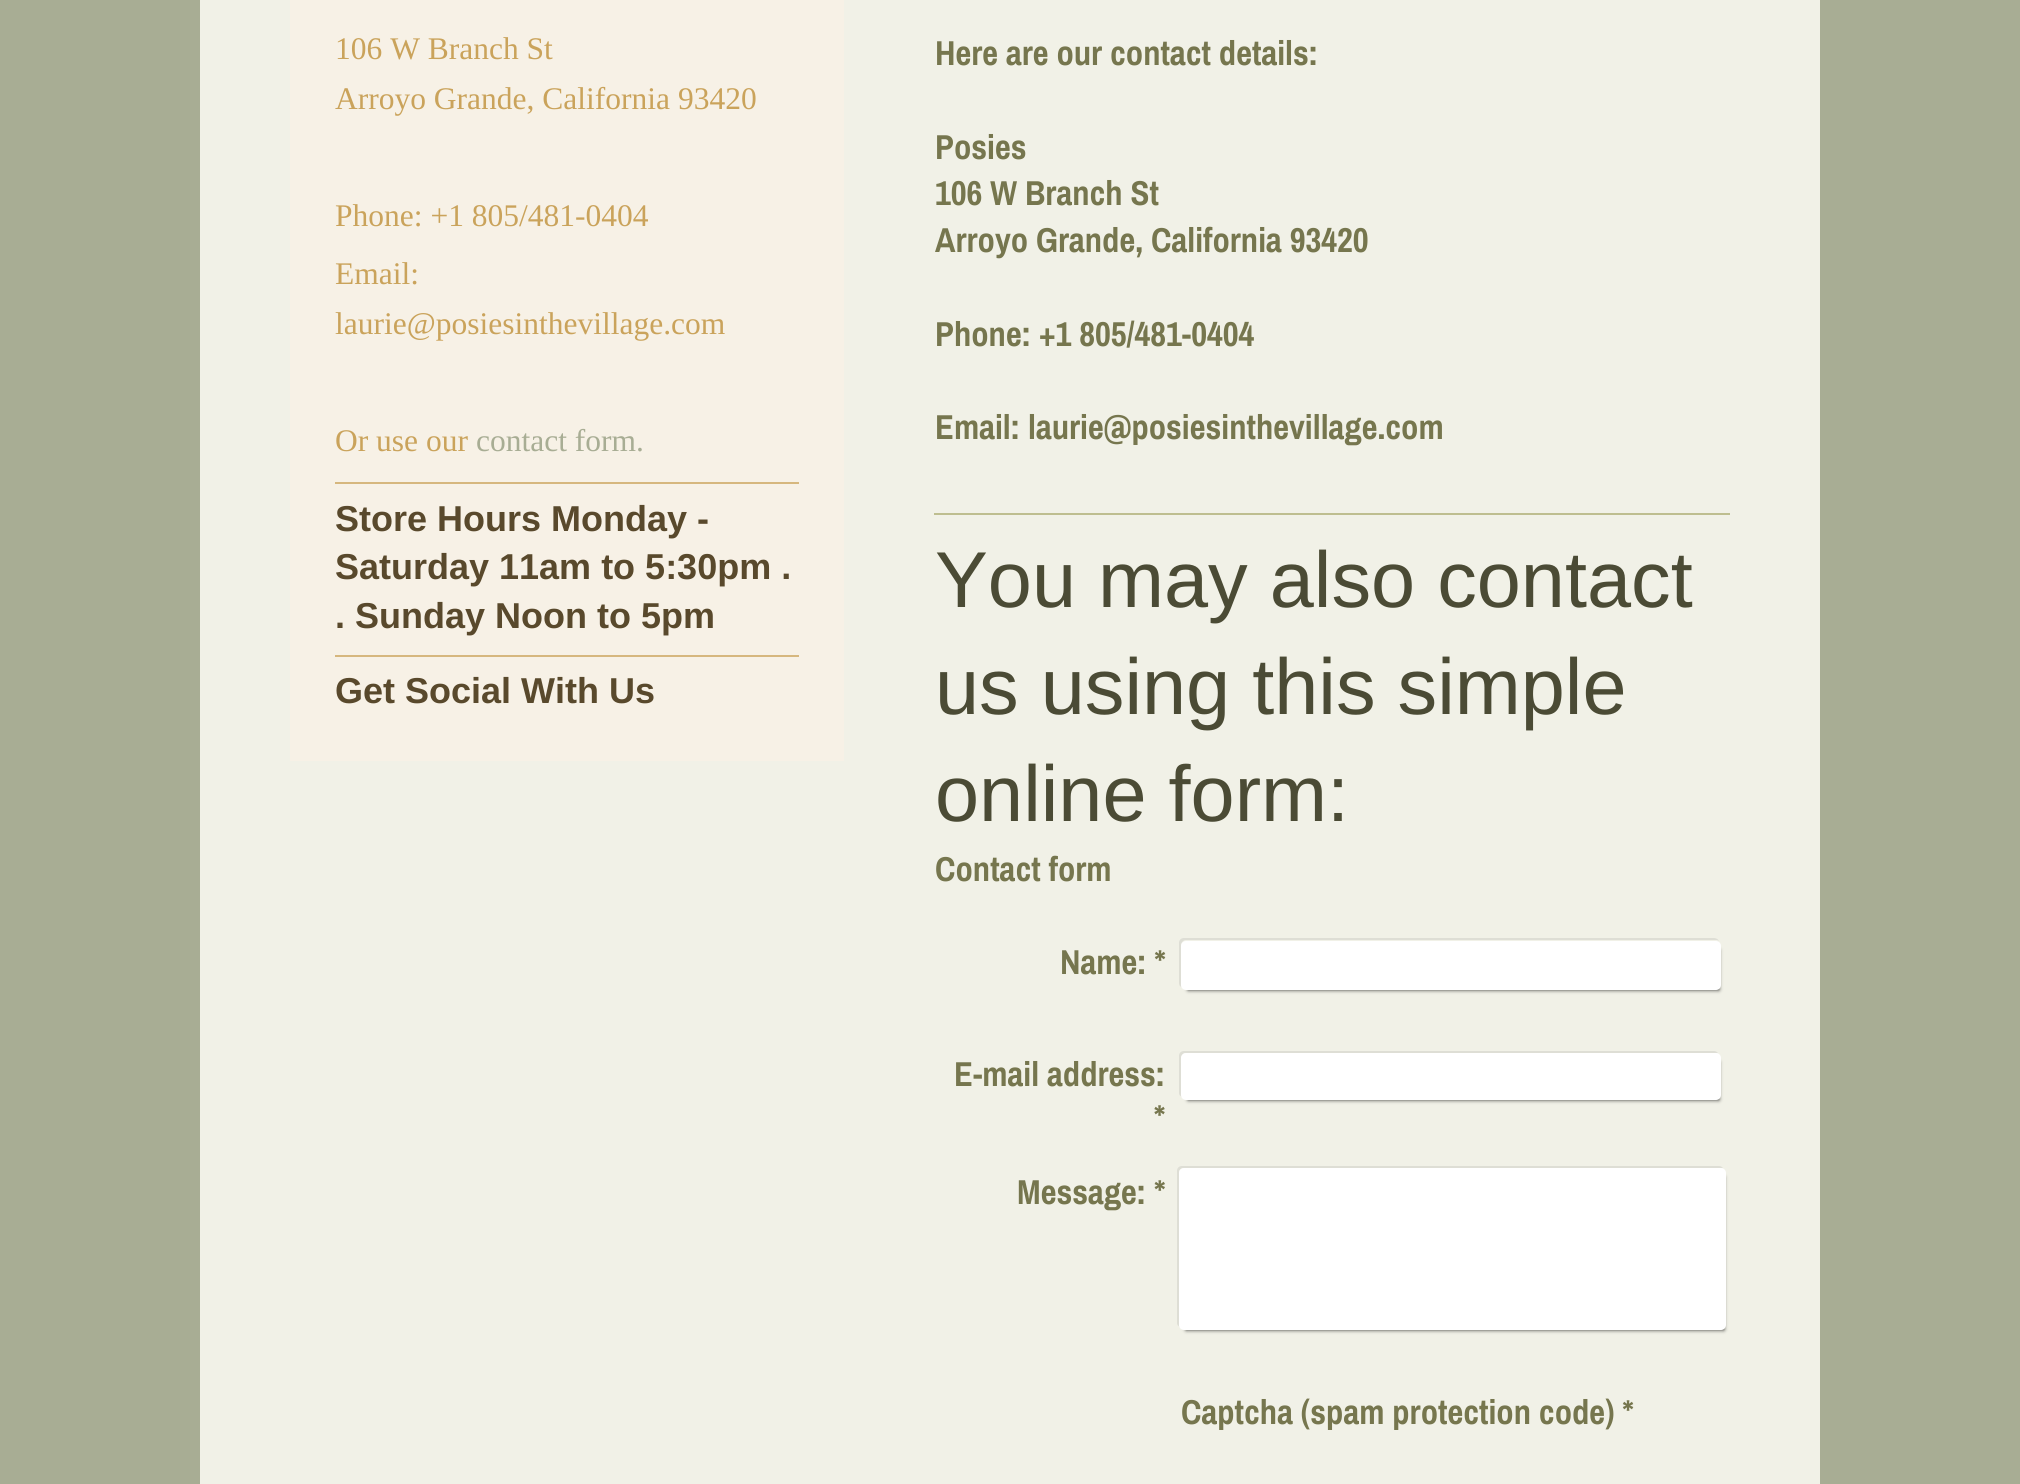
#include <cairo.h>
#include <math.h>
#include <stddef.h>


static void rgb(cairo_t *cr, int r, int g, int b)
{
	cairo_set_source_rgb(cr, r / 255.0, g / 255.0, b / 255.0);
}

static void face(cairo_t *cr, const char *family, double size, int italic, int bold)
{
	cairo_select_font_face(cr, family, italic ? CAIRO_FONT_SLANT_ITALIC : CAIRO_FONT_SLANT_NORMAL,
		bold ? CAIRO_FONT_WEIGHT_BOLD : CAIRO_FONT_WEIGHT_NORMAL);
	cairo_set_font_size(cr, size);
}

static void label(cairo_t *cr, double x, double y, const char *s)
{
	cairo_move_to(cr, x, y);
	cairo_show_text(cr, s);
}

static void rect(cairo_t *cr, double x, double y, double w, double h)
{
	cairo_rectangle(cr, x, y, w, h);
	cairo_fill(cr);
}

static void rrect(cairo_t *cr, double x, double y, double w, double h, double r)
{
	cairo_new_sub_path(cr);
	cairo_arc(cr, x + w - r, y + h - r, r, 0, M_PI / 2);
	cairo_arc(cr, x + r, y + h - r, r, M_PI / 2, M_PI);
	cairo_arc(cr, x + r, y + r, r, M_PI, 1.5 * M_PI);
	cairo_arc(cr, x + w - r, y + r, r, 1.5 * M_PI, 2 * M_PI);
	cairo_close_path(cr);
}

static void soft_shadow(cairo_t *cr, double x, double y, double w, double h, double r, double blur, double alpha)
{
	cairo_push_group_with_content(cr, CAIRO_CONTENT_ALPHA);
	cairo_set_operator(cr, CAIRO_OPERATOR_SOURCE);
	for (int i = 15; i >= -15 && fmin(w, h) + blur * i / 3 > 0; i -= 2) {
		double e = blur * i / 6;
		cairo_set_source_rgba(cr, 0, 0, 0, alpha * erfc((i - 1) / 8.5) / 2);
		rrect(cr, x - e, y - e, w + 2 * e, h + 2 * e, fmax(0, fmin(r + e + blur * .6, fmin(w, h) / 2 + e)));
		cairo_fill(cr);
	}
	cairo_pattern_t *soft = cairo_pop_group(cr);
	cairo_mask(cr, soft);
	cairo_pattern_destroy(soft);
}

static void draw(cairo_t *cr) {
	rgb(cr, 168, 173, 148);
	cairo_paint(cr);
	rgb(cr, 241, 241, 231);
	rect(cr, 200, 0, 1620, 1484);
	rgb(cr, 247, 241, 230);
	rect(cr, 290, 0, 554, 761);
	face(cr, "Liberation Serif", 31.5, 0, 0);
	rgb(cr, 202, 163, 91);
	label(cr, 335, 59, "106 W Branch St");
	label(cr, 335, 109, "Arroyo Grande, California 93420");
	label(cr, 335, 226, "Phone: +1 805/481-0404");
	label(cr, 335, 284, "Email:");
	label(cr, 335, 334, "laurie@posiesinthevillage.com");
	label(cr, 335, 451, "Or use our");
	rgb(cr, 168, 173, 148);
	label(cr, 476, 451, "contact form.");
	rgb(cr, 214, 183, 126);
	rect(cr, 335, 482, 464, 2);
	face(cr, "Liberation Sans", 36, 0, 1);
	rgb(cr, 89, 73, 44);
	label(cr, 335, 531, "Store Hours Monday -");
	label(cr, 335, 579, "Saturday 11am to 5:30pm .");
	label(cr, 335, 628, ". Sunday Noon to 5pm");
	rgb(cr, 214, 183, 126);
	rect(cr, 335, 655, 464, 2);
	rgb(cr, 89, 73, 44);
	label(cr, 335, 703, "Get Social With Us");
	face(cr, "Archivo Narrow", 34.6, 0, 1);
	rgb(cr, 118, 118, 78);
	label(cr, 935, 65, "Here are our contact details:");
	label(cr, 935, 159, "Posies");
	label(cr, 935, 205, "106 W Branch St");
	label(cr, 935, 252, "Arroyo Grande, California 93420");
	label(cr, 935, 346, "Phone: +1 805/481-0404");
	label(cr, 935, 439, "Email: laurie@posiesinthevillage.com");
	rgb(cr, 190, 190, 144);
	rect(cr, 934, 513, 796, 2);
	face(cr, "Liberation Sans", 79.25, 0, 0);
	rgb(cr, 75, 75, 53);
	label(cr, 935, 607, "You may also contact");
	label(cr, 935, 714, "us using this simple");
	label(cr, 935, 821, "online form:");
	face(cr, "Archivo Narrow", 34.6, 0, 1);
	rgb(cr, 118, 118, 78);
	label(cr, 935, 881, "Contact form");
	rgb(cr, 222, 222, 213);
	cairo_new_path(cr);
	cairo_move_to(cr, 1184, 938);
	cairo_curve_to(cr, 1181, 938, 1179, 940, 1179, 943);
	cairo_line_to(cr, 1179, 983);
	cairo_curve_to(cr, 1179, 985, 1180, 987, 1182, 987);
	cairo_line_to(cr, 1181, 986);
	cairo_line_to(cr, 1181, 945);
	cairo_curve_to(cr, 1181, 943, 1183, 940, 1186, 940);
	cairo_line_to(cr, 1717, 940);
	cairo_line_to(cr, 1719, 941);
	cairo_curve_to(cr, 1718, 939, 1716, 938, 1714, 938);
	cairo_close_path(cr);
	cairo_fill(cr);
	rgb(cr, 0, 0, 0);
	soft_shadow(cr, 1188, 950, 531, 40, 0, 2, 0.8);
	rgb(cr, 255, 255, 255);
	rrect(cr, 1181, 941, 540, 49, 5);
	cairo_fill(cr);
	rgb(cr, 118, 118, 78);
	label(cr, 1060, 974, "Name: *");
	rgb(cr, 222, 222, 213);
	cairo_new_path(cr);
	cairo_move_to(cr, 1184, 1051);
	cairo_curve_to(cr, 1181, 1051, 1179, 1053, 1179, 1056);
	cairo_line_to(cr, 1179, 1093);
	cairo_curve_to(cr, 1179, 1095, 1180, 1096, 1182, 1097);
	cairo_line_to(cr, 1181, 1064);
	cairo_curve_to(cr, 1181, 1060, 1180, 1053, 1186, 1053);
	cairo_line_to(cr, 1718, 1053);
	cairo_curve_to(cr, 1717, 1052, 1716, 1051, 1714, 1051);
	cairo_close_path(cr);
	cairo_fill(cr);
	rgb(cr, 0, 0, 0);
	soft_shadow(cr, 1188, 1062, 531, 38, 0, 2, 0.8);
	rgb(cr, 255, 255, 255);
	rrect(cr, 1181, 1053, 540, 47, 5);
	cairo_fill(cr);
	rgb(cr, 118, 118, 78);
	label(cr, 954, 1086, "E-mail address:");
	label(cr, 1154, 1129, "*");
	rgb(cr, 222, 222, 213);
	cairo_new_path(cr);
	cairo_move_to(cr, 1182, 1166);
	cairo_curve_to(cr, 1179, 1166, 1177, 1168, 1177, 1171);
	cairo_line_to(cr, 1177, 1323);
	cairo_curve_to(cr, 1177, 1325, 1178, 1326, 1180, 1327);
	cairo_line_to(cr, 1179, 1325);
	cairo_line_to(cr, 1179, 1172);
	cairo_curve_to(cr, 1179, 1170, 1181, 1168, 1184, 1168);
	cairo_line_to(cr, 1721, 1168);
	cairo_line_to(cr, 1723, 1168);
	cairo_curve_to(cr, 1722, 1167, 1721, 1166, 1719, 1166);
	cairo_close_path(cr);
	cairo_fill(cr);
	rgb(cr, 0, 0, 0);
	soft_shadow(cr, 1186, 1177, 538, 153, 0, 2, 0.8);
	rgb(cr, 255, 255, 255);
	rrect(cr, 1179, 1168, 547, 162, 5);
	cairo_fill(cr);
	rgb(cr, 118, 118, 78);
	label(cr, 1017, 1204, "Message: *");
	label(cr, 1181, 1424, "Captcha (spam protection code) *");
}

int main(void) {
	cairo_surface_t *surface = cairo_image_surface_create(CAIRO_FORMAT_RGB24, 2020, 1484);
	cairo_t *cr = cairo_create(surface);
	cairo_font_options_t *options = cairo_font_options_create();
	cairo_font_options_set_hint_metrics(options, CAIRO_HINT_METRICS_OFF);
	cairo_font_options_set_hint_style(options, CAIRO_HINT_STYLE_NONE);
	cairo_set_font_options(cr, options);
	cairo_set_miter_limit(cr, 4);
	draw(cr);
	cairo_surface_write_to_png(surface, "render.png");
	cairo_font_options_destroy(options);
	cairo_destroy(cr);
	cairo_surface_destroy(surface);
	return 0;
}
